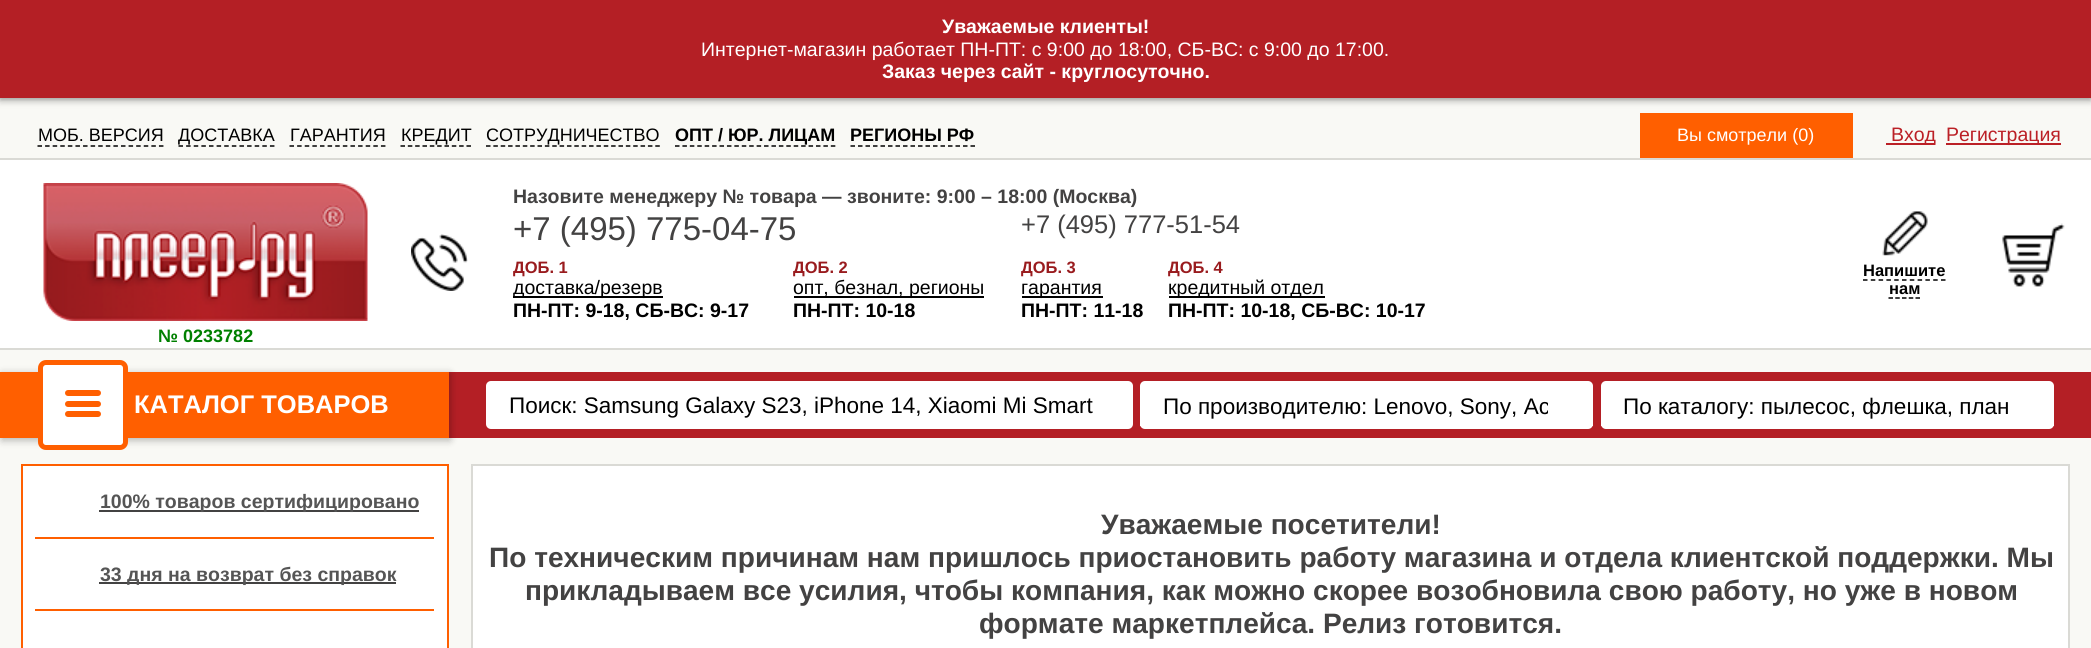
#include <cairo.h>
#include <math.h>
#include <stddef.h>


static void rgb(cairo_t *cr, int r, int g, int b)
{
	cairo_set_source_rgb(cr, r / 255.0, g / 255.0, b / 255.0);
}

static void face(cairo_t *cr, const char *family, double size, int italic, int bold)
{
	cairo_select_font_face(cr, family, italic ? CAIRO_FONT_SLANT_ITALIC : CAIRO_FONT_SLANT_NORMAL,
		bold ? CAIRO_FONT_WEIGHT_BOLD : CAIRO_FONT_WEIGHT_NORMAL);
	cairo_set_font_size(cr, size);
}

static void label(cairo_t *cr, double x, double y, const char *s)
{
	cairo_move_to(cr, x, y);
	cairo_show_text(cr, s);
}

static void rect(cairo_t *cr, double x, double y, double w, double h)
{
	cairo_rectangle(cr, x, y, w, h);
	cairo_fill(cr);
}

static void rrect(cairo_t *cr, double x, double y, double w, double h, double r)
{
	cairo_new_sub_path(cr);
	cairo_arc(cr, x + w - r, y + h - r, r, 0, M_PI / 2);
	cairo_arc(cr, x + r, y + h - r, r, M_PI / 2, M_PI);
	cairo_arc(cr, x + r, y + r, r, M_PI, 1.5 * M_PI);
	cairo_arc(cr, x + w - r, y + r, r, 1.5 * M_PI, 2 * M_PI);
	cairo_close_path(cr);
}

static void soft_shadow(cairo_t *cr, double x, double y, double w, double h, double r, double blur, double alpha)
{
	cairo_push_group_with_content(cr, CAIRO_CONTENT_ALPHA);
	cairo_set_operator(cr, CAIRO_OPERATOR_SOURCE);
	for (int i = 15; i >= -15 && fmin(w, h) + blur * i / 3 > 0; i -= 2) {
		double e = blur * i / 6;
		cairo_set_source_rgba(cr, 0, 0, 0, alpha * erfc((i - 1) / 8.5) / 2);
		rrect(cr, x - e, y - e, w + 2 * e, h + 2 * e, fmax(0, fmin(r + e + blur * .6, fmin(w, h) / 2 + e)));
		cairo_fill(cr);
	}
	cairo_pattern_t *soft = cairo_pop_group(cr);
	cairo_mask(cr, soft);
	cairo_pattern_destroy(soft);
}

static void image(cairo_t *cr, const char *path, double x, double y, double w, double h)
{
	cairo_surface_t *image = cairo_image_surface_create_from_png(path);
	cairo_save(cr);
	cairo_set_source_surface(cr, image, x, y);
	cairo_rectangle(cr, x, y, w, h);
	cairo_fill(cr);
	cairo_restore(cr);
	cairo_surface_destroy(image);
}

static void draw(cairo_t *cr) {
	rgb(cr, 249, 249, 245);
	cairo_paint(cr);
	rgb(cr, 0, 0, 0);
	soft_shadow(cr, 0, 2, 2091, 97, 0, 4, 0.5);
	rgb(cr, 180, 31, 37);
	rect(cr, 0, 0, 2091, 98);
	face(cr, "Liberation Sans", 19.5, 0, 1);
	rgb(cr, 255, 255, 255);
	label(cr, 942, 33, "Уважаемые клиенты!");
	face(cr, "Liberation Sans", 19.5, 0, 0);
	label(cr, 701, 56, "Интернет-магазин работает ПН-ПТ: с 9:00 до 18:00, СБ-ВС: с 9:00 до 17:00.");
	face(cr, "Liberation Sans", 19.5, 0, 1);
	label(cr, 882, 78, "Заказ через сайт - круглосуточно.");
	face(cr, "Liberation Sans", 18, 0, 0);
	rgb(cr, 0, 0, 0);
	label(cr, 38, 141, "МОБ. ВЕРСИЯ");
	cairo_new_path(cr);
	cairo_move_to(cr, 37.5, 146);
	cairo_line_to(cr, 163.5, 146);
	cairo_set_line_width(cr, 1.5);
	cairo_set_dash(cr, (double[]){4.5, 3.09}, 2, 0);
	cairo_stroke(cr);
	label(cr, 178, 141, "ДОСТАВКА");
	cairo_new_path(cr);
	cairo_move_to(cr, 178.5, 146);
	cairo_line_to(cr, 274.5, 146);
	cairo_set_dash(cr, (double[]){4.5, 3.12}, 2, 0);
	cairo_stroke(cr);
	label(cr, 290, 141, "ГАРАНТИЯ");
	cairo_new_path(cr);
	cairo_move_to(cr, 289.5, 146);
	cairo_line_to(cr, 385.5, 146);
	cairo_stroke(cr);
	label(cr, 401, 141, "КРЕДИТ");
	cairo_new_path(cr);
	cairo_move_to(cr, 400.5, 146);
	cairo_line_to(cr, 471, 146);
	cairo_set_dash(cr, (double[]){4.5, 2.83}, 2, 0);
	cairo_stroke(cr);
	label(cr, 486, 141, "СОТРУДНИЧЕСТВО");
	cairo_new_path(cr);
	cairo_move_to(cr, 486, 146);
	cairo_line_to(cr, 660, 146);
	cairo_set_dash(cr, (double[]){4.5, 2.86}, 2, 0);
	cairo_stroke(cr);
	face(cr, "Liberation Sans", 18, 0, 1);
	label(cr, 675, 141, "ОПТ / ЮР. ЛИЦАМ");
	cairo_new_path(cr);
	cairo_move_to(cr, 675, 146);
	cairo_line_to(cr, 835.5, 146);
	cairo_set_dash(cr, (double[]){4.5, 2.92}, 2, 0);
	cairo_stroke(cr);
	label(cr, 850, 141, "РЕГИОНЫ РФ");
	cairo_new_path(cr);
	cairo_move_to(cr, 850.5, 146);
	cairo_line_to(cr, 975, 146);
	cairo_set_dash(cr, (double[]){4.5, 3}, 2, 0);
	cairo_stroke(cr);
	rgb(cr, 255, 95, 0);
	rect(cr, 1640, 113, 213, 45);
	face(cr, "Liberation Sans", 18, 0, 0);
	rgb(cr, 255, 255, 255);
	label(cr, 1677, 141, "Вы смотрели (0)");
	rgb(cr, 187, 32, 38);
	rect(cr, 1886, 143, 49, 2);
	face(cr, "Liberation Sans", 19.5, 0, 0);
	label(cr, 1891, 141, "Вход");
	rect(cr, 1946, 143, 115, 2);
	label(cr, 1946, 141, "Регистрация");
	rgb(cr, 255, 255, 255);
	rect(cr, 0, 160, 2091, 188);
	rgb(cr, 218, 218, 213);
	rect(cr, 0, 158, 2091, 2);
	rect(cr, 0, 348, 2091, 2);
	image(cr, "image0.png", 411, 234, 57, 57);
	face(cr, "Liberation Sans", 19.5, 0, 1);
	rgb(cr, 67, 66, 66);
	label(cr, 513, 203, "Назовите менеджеру № товара — звоните: 9:00 – 18:00 (Москва)");
	face(cr, "Liberation Sans", 33, 0, 0);
	label(cr, 513, 240, "+7 (495) 775-04-75");
	face(cr, "Liberation Sans", 25.5, 0, 0);
	label(cr, 1021, 233, "+7 (495) 777-51-54");
	face(cr, "Liberation Sans", 16.5, 0, 1);
	rgb(cr, 153, 27, 30);
	label(cr, 513, 273, "ДОБ. 1");
	rgb(cr, 0, 0, 0);
	rect(cr, 513, 296, 150, 2);
	face(cr, "Liberation Sans", 19.5, 0, 0);
	label(cr, 513, 294, "доставка/резерв");
	face(cr, "Liberation Sans", 19.5, 0, 1);
	label(cr, 513, 317, "ПН-ПТ: 9-18, СБ-ВС: 9-17");
	face(cr, "Liberation Sans", 16.5, 0, 1);
	rgb(cr, 153, 27, 30);
	label(cr, 793, 273, "ДОБ. 2");
	rgb(cr, 0, 0, 0);
	rect(cr, 794, 296, 190, 2);
	face(cr, "Liberation Sans", 19.5, 0, 0);
	label(cr, 793, 294, "опт, безнал, регионы");
	face(cr, "Liberation Sans", 19.5, 0, 1);
	label(cr, 793, 317, "ПН-ПТ: 10-18");
	face(cr, "Liberation Sans", 16.5, 0, 1);
	rgb(cr, 153, 27, 30);
	label(cr, 1021, 273, "ДОБ. 3");
	rgb(cr, 0, 0, 0);
	rect(cr, 1022, 296, 81, 2);
	face(cr, "Liberation Sans", 19.5, 0, 0);
	label(cr, 1021, 294, "гарантия");
	face(cr, "Liberation Sans", 19.5, 0, 1);
	label(cr, 1021, 317, "ПН-ПТ: 11-18");
	face(cr, "Liberation Sans", 16.5, 0, 1);
	rgb(cr, 153, 27, 30);
	label(cr, 1168, 273, "ДОБ. 4");
	rgb(cr, 0, 0, 0);
	rect(cr, 1169, 296, 156, 2);
	face(cr, "Liberation Sans", 19.5, 0, 0);
	label(cr, 1168, 294, "кредитный отдел");
	face(cr, "Liberation Sans", 19.5, 0, 1);
	label(cr, 1168, 317, "ПН-ПТ: 10-18, СБ-ВС: 10-17");
	image(cr, "image1.png", 1882, 211, 46, 45);
	face(cr, "Liberation Sans", 16.5, 0, 1);
	label(cr, 1863, 276, "Напишите");
	cairo_new_path(cr);
	cairo_move_to(cr, 1863, 280);
	cairo_line_to(cr, 1945.5, 280);
	cairo_set_dash(cr, (double[]){4.5, 3.3}, 2, 0);
	cairo_stroke(cr);
	label(cr, 1889, 294, "нам");
	cairo_new_path(cr);
	cairo_move_to(cr, 1888.5, 298);
	cairo_line_to(cr, 1920, 298);
	cairo_set_dash(cr, (double[]){4.5, 2.25}, 2, 0);
	cairo_stroke(cr);
	image(cr, "image2.png", 2002, 223, 63, 64);
	image(cr, "image3.png", 43, 183, 325, 138);
	face(cr, "Liberation Sans", 18, 0, 1);
	rgb(cr, 0, 128, 0);
	label(cr, 158, 342, "№ 0233782");
	rgb(cr, 180, 31, 37);
	rect(cr, 449, 372, 1642, 66);
	rgb(cr, 0, 0, 0);
	soft_shadow(cr, 2, 374, 448, 66, 0, 4, 0.3);
	rgb(cr, 255, 95, 0);
	rect(cr, 0, 372, 449, 66);
	rgb(cr, 255, 255, 255);
	rrect(cr, 40.5, 362.5, 85, 85, 5.5);
	cairo_fill_preserve(cr);
	rgb(cr, 255, 95, 0);
	cairo_set_line_width(cr, 5);
	cairo_set_dash(cr, NULL, 0, 0);
	cairo_stroke(cr);
	rrect(cr, 65, 390, 36, 6, 3);
	cairo_fill(cr);
	rrect(cr, 65, 401, 36, 6, 3);
	cairo_fill(cr);
	rrect(cr, 65, 411, 36, 6, 3);
	cairo_fill(cr);
	face(cr, "Liberation Sans", 25.5, 0, 1);
	rgb(cr, 255, 255, 255);
	label(cr, 134, 413, "КАТАЛОГ ТОВАРОВ");
	rrect(cr, 486, 381, 647, 48, 5);
	cairo_fill(cr);
	face(cr, "Liberation Sans", 22.5, 0, 0);
	rgb(cr, 0, 0, 0);
	label(cr, 509, 413, "Поиск: Samsung Galaxy S23, iPhone 14, Xiaomi Mi Smart");
	rgb(cr, 255, 255, 255);
	rrect(cr, 1140, 381, 453, 48, 5);
	cairo_fill(cr);
	rect(cr, 1140, 424, 453, 2);
	cairo_save(cr);
	cairo_rectangle(cr, 1163, 393, 385, 26);
	cairo_clip(cr);
	rgb(cr, 0, 0, 0);
	label(cr, 1163, 414, "По производителю: Lenovo, Sony, Ac");
	cairo_restore(cr);
	rrect(cr, 1601, 381, 453, 48, 5);
	cairo_fill(cr);
	rect(cr, 1601, 424, 453, 2);
	rgb(cr, 0, 0, 0);
	label(cr, 1623, 414, "По каталогу: пылесос, флешка, план");
	rgb(cr, 255, 255, 255);
	cairo_rectangle(cr, 22, 465, 426, 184);
	cairo_fill_preserve(cr);
	rgb(cr, 255, 95, 0);
	cairo_set_line_width(cr, 2);
	cairo_stroke(cr);
	rgb(cr, 67, 66, 66);
	rect(cr, 99, 510, 320, 2);
	face(cr, "Liberation Sans", 19.5, 0, 1);
	rgb(cr, 85, 85, 85);
	label(cr, 100, 508, "100% товаров сертифицировано");
	rgb(cr, 255, 95, 0);
	rect(cr, 35, 537, 399, 2);
	rgb(cr, 67, 66, 66);
	rect(cr, 99, 582, 297, 2);
	rgb(cr, 85, 85, 85);
	label(cr, 100, 581, "33 дня на возврат без справок");
	rgb(cr, 255, 95, 0);
	rect(cr, 35, 609, 399, 2);
	rgb(cr, 255, 255, 255);
	cairo_rectangle(cr, 472, 465, 1597, 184);
	cairo_fill_preserve(cr);
	rgb(cr, 218, 218, 213);
	cairo_stroke(cr);
	face(cr, "Liberation Sans", 28.08, 0, 1);
	rgb(cr, 67, 66, 66);
	label(cr, 1101, 534, "Уважаемые посетители!");
	label(cr, 489, 567, "По техническим причинам нам пришлось приостановить работу магазина и отдела клиентской поддержки. Мы");
	label(cr, 525, 600, "прикладываем все усилия, чтобы компания, как можно скорее возобновила свою работу, но уже в новом");
	label(cr, 979, 633, "формате маркетплейса. Релиз готовится.");
}

int main(void) {
	cairo_surface_t *surface = cairo_image_surface_create(CAIRO_FORMAT_RGB24, 2091, 648);
	cairo_t *cr = cairo_create(surface);
	cairo_font_options_t *options = cairo_font_options_create();
	cairo_font_options_set_hint_metrics(options, CAIRO_HINT_METRICS_OFF);
	cairo_font_options_set_hint_style(options, CAIRO_HINT_STYLE_NONE);
	cairo_set_font_options(cr, options);
	cairo_set_miter_limit(cr, 4);
	draw(cr);
	cairo_surface_write_to_png(surface, "render.png");
	cairo_font_options_destroy(options);
	cairo_destroy(cr);
	cairo_surface_destroy(surface);
	return 0;
}
